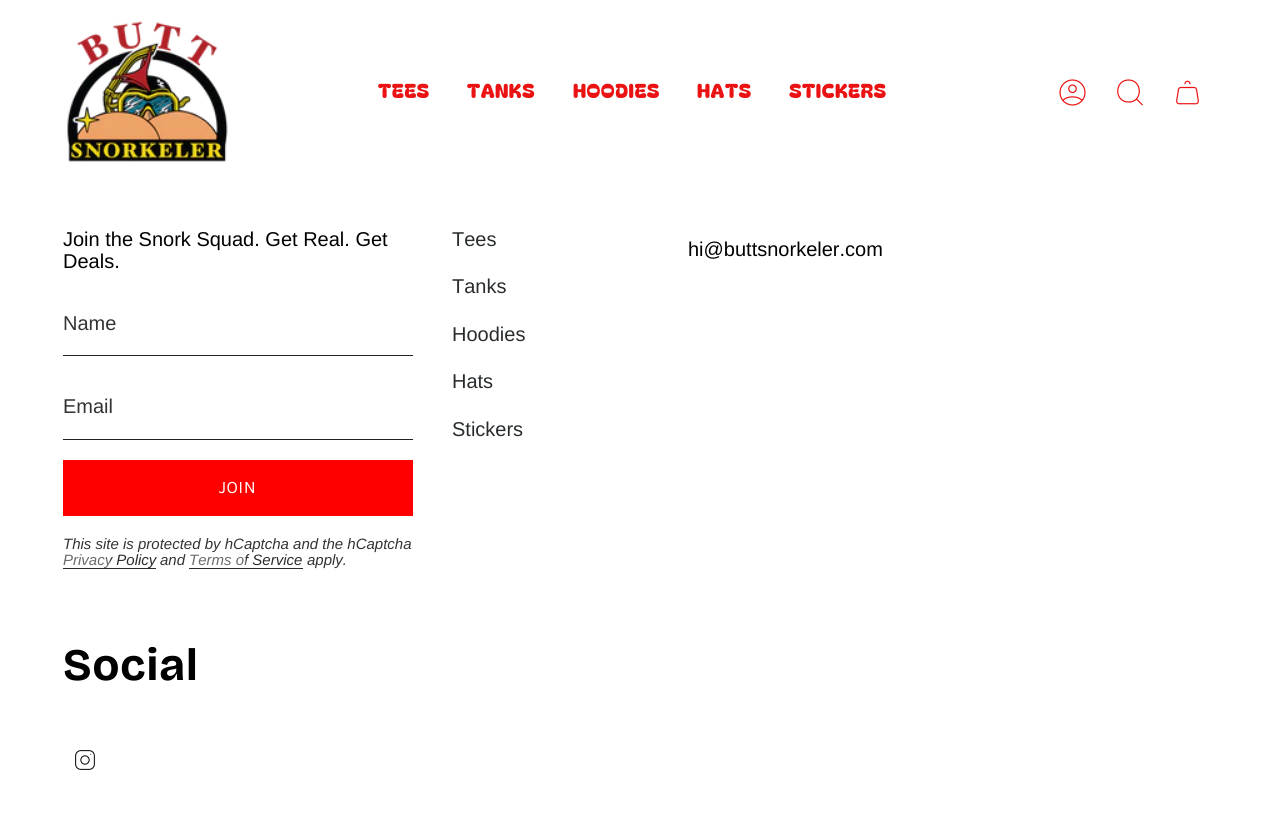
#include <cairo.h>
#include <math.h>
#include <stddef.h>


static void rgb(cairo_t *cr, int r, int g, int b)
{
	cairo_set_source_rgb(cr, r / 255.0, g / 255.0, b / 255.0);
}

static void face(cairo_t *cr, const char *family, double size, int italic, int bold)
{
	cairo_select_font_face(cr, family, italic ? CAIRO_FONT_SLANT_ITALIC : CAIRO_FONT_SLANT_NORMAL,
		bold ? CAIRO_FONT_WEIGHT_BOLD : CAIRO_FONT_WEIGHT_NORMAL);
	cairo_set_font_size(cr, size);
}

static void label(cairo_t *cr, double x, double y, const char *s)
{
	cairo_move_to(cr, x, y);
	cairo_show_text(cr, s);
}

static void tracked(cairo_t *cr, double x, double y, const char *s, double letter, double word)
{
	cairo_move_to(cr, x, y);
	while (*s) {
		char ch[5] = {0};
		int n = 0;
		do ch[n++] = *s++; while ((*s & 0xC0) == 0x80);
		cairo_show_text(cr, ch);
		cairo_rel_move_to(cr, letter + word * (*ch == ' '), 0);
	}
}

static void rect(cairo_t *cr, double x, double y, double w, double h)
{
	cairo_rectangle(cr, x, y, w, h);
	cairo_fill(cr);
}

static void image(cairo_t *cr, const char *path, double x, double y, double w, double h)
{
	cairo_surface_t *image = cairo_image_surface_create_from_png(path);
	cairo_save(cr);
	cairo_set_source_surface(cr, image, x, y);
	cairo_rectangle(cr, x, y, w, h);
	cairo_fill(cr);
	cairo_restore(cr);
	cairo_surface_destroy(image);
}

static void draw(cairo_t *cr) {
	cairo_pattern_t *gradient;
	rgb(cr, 255, 255, 255);
	cairo_paint(cr);
	image(cr, "image0.png", 67, 21, 161, 141);
	face(cr, "Bagel Fat One", 19.5, 0, 0);
	rgb(cr, 234, 18, 18);
	tracked(cr, 378, 98, "TEES", 0.5, 0);
	tracked(cr, 467, 98, "TANKS", 0.5, 0);
	tracked(cr, 573, 98, "HOODIES", 0.5, 0);
	tracked(cr, 697, 98, "HATS", 0.5, 0);
	tracked(cr, 789, 98, "STICKERS", 0.5, 0);
	image(cr, "image1.png", 1059, 79, 27, 27);
	cairo_new_path(cr);
	cairo_move_to(cr, 1128.5, 80);
	cairo_curve_to(cr, 1143, 80, 1143, 103, 1128, 102);
	cairo_curve_to(cr, 1114, 101.5, 1114.5, 80, 1128.5, 80);
	cairo_close_path(cr);
	cairo_move_to(cr, 1136.5, 99);
	cairo_line_to(cr, 1142.5, 105);
	cairo_set_line_width(cr, 1.2);
	cairo_stroke(cr);
	image(cr, "image2.png", 1176, 80, 23, 25);
	face(cr, "Liberation Sans", 20, 0, 0);
	rgb(cr, 0, 0, 0);
	label(cr, 63, 246, "Join the Snork Squad. Get Real. Get");
	label(cr, 63, 268, "Deals.");
	rgb(cr, 33, 33, 33);
	rect(cr, 63, 355, 350, 1);
	rgb(cr, 51, 51, 51);
	label(cr, 63, 330, "Name");
	rgb(cr, 33, 33, 33);
	rect(cr, 63, 439, 350, 1);
	rgb(cr, 51, 51, 51);
	label(cr, 63, 413, "Email");
	rgb(cr, 255, 0, 0);
	rect(cr, 63, 460, 350, 56);
	face(cr, "Karla", 17.5, 0, 0);
	rgb(cr, 255, 255, 255);
	tracked(cr, 219, 493, "JOIN", 0.5, 0);
	face(cr, "Liberation Sans", 15, 1, 0);
	rgb(cr, 51, 51, 51);
	label(cr, 63, 549, "This site is protected by hCaptcha and the hCaptcha");
	gradient = cairo_pattern_create_linear(63, 560, 156, 560);
	cairo_pattern_add_color_stop_rgba(gradient, 0, 0.412, 0.42, 0.427, 1);
	cairo_pattern_add_color_stop_rgba(gradient, 0.5, 0.412, 0.42, 0.427, 1);
	cairo_pattern_add_color_stop_rgba(gradient, 0.5, 0.157, 0.173, 0.18, 1);
	cairo_pattern_add_color_stop_rgba(gradient, 1, 0.157, 0.173, 0.18, 1);
	cairo_set_source(cr, gradient);
	cairo_pattern_destroy(gradient);
	label(cr, 63, 565, "Privacy Policy");
	rgb(cr, 40, 44, 46);
	rect(cr, 63, 568, 93, 1);
	rgb(cr, 51, 51, 51);
	label(cr, 160, 565, "and");
	gradient = cairo_pattern_create_linear(189, 560, 303, 560);
	cairo_pattern_add_color_stop_rgba(gradient, 0, 0.412, 0.42, 0.427, 1);
	cairo_pattern_add_color_stop_rgba(gradient, 0.5, 0.412, 0.42, 0.427, 1);
	cairo_pattern_add_color_stop_rgba(gradient, 0.5, 0.157, 0.173, 0.18, 1);
	cairo_pattern_add_color_stop_rgba(gradient, 1, 0.157, 0.173, 0.18, 1);
	cairo_set_source(cr, gradient);
	cairo_pattern_destroy(gradient);
	label(cr, 189, 565, "Terms of Service");
	rgb(cr, 40, 44, 46);
	rect(cr, 189, 568, 114, 1);
	rgb(cr, 51, 51, 51);
	label(cr, 307, 565, "apply.");
	face(cr, "Liberation Sans", 20, 0, 0);
	rgb(cr, 40, 44, 46);
	label(cr, 452, 246, "Tees");
	label(cr, 452, 293, "Tanks");
	label(cr, 452, 341, "Hoodies");
	label(cr, 452, 388, "Hats");
	label(cr, 452, 436, "Stickers");
	rgb(cr, 0, 0, 0);
	label(cr, 688, 256, "hi@buttsnorkeler.com");
	face(cr, "Bricolage Grotesque", 45, 0, 1);
	tracked(cr, 63, 680, "Social", 1, 0);
	image(cr, "image3.png", 75, 750, 20, 20);
}

int main(void) {
	cairo_surface_t *surface = cairo_image_surface_create(CAIRO_FORMAT_RGB24, 1264, 819);
	cairo_t *cr = cairo_create(surface);
	cairo_font_options_t *options = cairo_font_options_create();
	cairo_font_options_set_hint_metrics(options, CAIRO_HINT_METRICS_OFF);
	cairo_font_options_set_hint_style(options, CAIRO_HINT_STYLE_NONE);
	cairo_set_font_options(cr, options);
	cairo_set_miter_limit(cr, 4);
	draw(cr);
	cairo_surface_write_to_png(surface, "render.png");
	cairo_font_options_destroy(options);
	cairo_destroy(cr);
	cairo_surface_destroy(surface);
	return 0;
}
